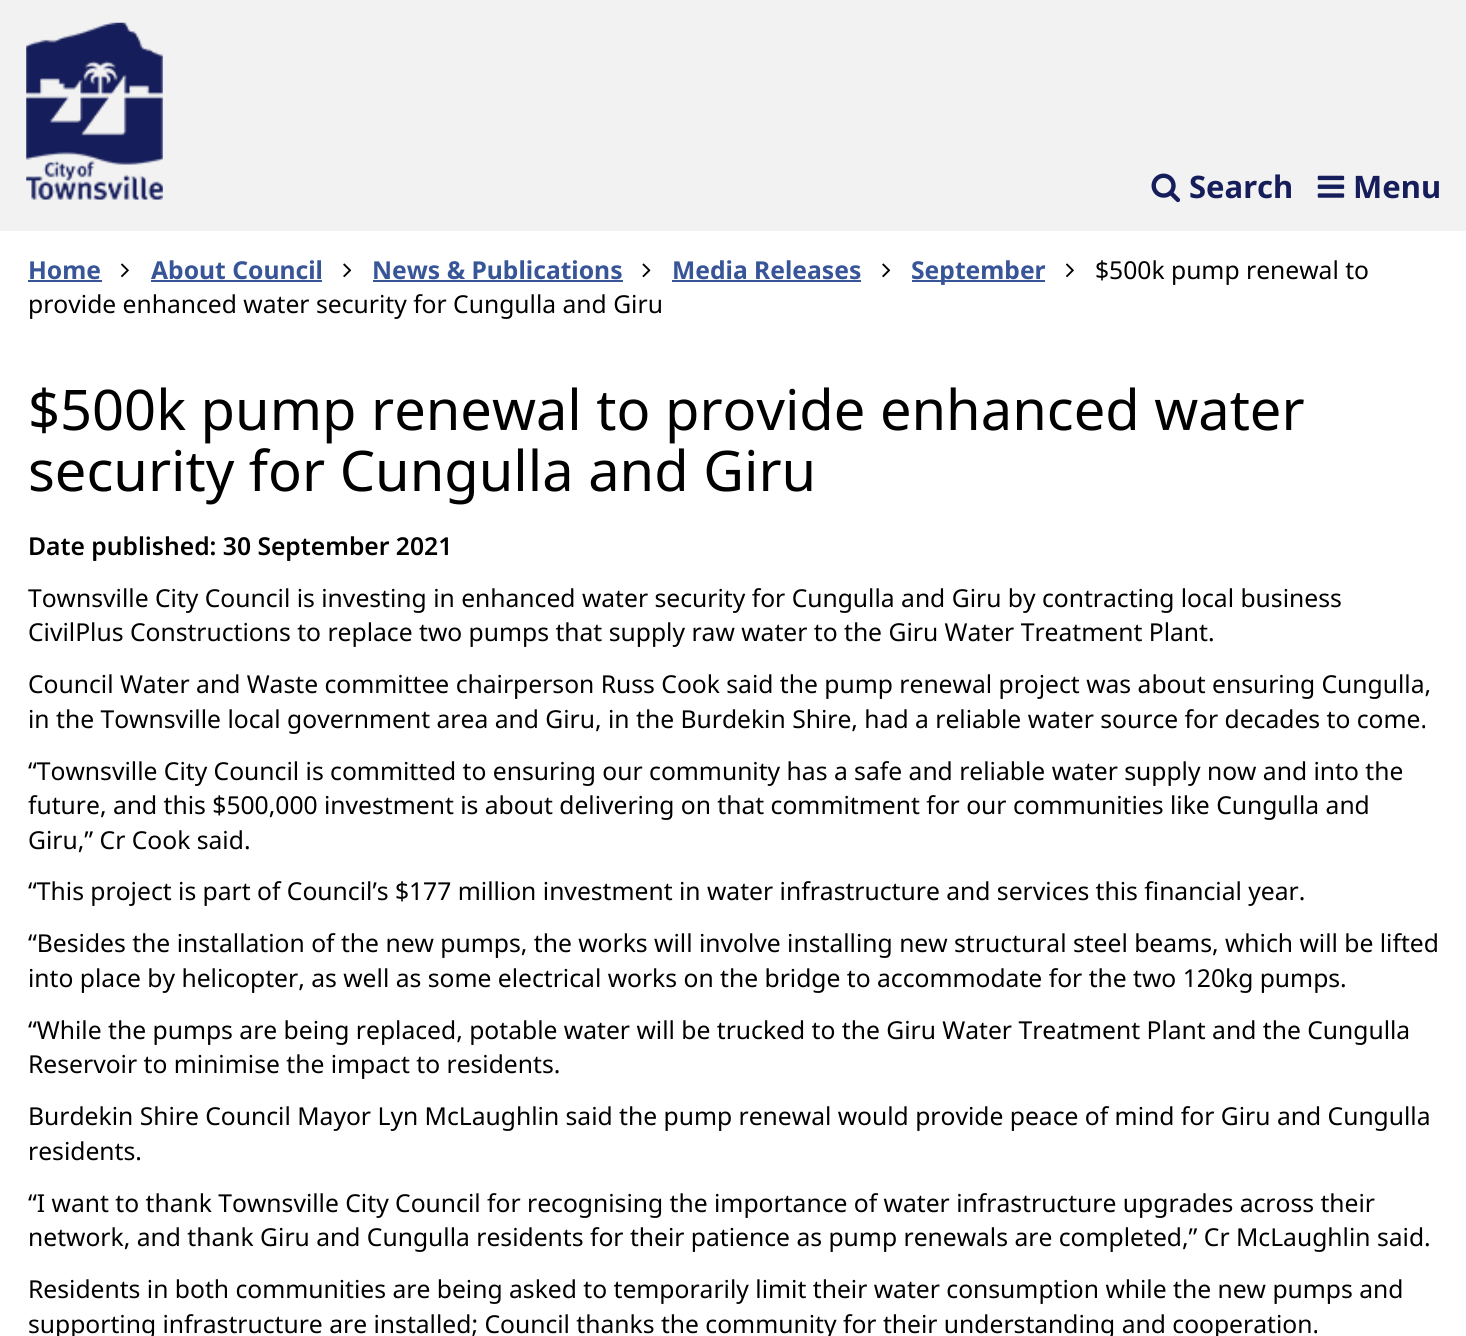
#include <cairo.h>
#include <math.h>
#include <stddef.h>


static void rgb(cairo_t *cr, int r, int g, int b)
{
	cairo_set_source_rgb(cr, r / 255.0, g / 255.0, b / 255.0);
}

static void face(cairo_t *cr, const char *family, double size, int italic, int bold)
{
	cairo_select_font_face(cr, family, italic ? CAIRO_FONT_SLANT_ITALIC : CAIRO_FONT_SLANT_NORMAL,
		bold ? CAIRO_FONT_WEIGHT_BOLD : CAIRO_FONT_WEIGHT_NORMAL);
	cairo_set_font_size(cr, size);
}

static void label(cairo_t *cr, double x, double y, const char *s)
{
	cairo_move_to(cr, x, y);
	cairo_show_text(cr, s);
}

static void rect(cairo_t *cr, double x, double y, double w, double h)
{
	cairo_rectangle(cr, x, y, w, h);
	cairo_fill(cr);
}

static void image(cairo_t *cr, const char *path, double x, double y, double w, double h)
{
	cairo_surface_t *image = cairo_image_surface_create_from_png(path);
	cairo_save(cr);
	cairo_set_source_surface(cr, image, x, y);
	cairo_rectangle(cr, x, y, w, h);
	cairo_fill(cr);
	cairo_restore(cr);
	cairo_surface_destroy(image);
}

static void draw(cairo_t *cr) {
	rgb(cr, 255, 255, 255);
	cairo_paint(cr);
	rgb(cr, 242, 242, 242);
	rect(cr, 0, 0, 1466, 231);
	image(cr, "image0.png", 26, 22, 137, 178);
	image(cr, "image1.png", 1151, 173, 30, 30);
	face(cr, "Noto Sans", 31, 0, 1);
	rgb(cr, 22, 29, 91);
	label(cr, 1189, 198, "Search");
	image(cr, "image2.png", 1317, 175, 28, 23);
	label(cr, 1353, 198, "Menu");
	face(cr, "Noto Sans", 24.65, 0, 1);
	rgb(cr, 56, 85, 151);
	label(cr, 28, 279, "Home");
	rect(cr, 28, 280, 74, 2);
	image(cr, "image3.png", 121, 263, 8, 15);
	label(cr, 151, 279, "About Council");
	rect(cr, 151, 280, 171, 2);
	image(cr, "image4.png", 343, 263, 9, 15);
	label(cr, 372, 279, "News & Publications");
	rect(cr, 373, 280, 250, 2);
	image(cr, "image5.png", 642, 263, 9, 15);
	label(cr, 672, 279, "Media Releases");
	rect(cr, 672, 280, 189, 2);
	image(cr, "image4.png", 882, 263, 9, 15);
	rect(cr, 912, 280, 133, 2);
	label(cr, 911, 279, "September");
	image(cr, "image3.png", 1066, 263, 8, 15);
	face(cr, "Noto Sans", 24.65, 0, 0);
	rgb(cr, 0, 0, 0);
	label(cr, 1095, 279, "$500k pump renewal to");
	label(cr, 28, 313, "provide enhanced water security for Cungulla and Giru");
	face(cr, "Noto Sans", 56, 0, 0);
	label(cr, 28, 430, "$500k pump renewal to provide enhanced water");
	label(cr, 28, 491, "security for Cungulla and Giru");
	face(cr, "Noto Sans SemiBold", 24.65, 0, 0);
	label(cr, 28, 555, "Date published: 30 September 2021");
	face(cr, "Noto Sans", 24.65, 0, 0);
	label(cr, 28, 607, "Townsville City Council is investing in enhanced water security for Cungulla and Giru by contracting local business");
	label(cr, 28, 641, "CivilPlus Constructions to replace two pumps that supply raw water to the Giru Water Treatment Plant.");
	label(cr, 28, 693, "Council Water and Waste committee chairperson Russ Cook said the pump renewal project was about ensuring Cungulla,");
	label(cr, 28, 728, "in the Townsville local government area and Giru, in the Burdekin Shire, had a reliable water source for decades to come.");
	label(cr, 28, 780, "“Townsville City Council is committed to ensuring our community has a safe and reliable water supply now and into the");
	label(cr, 28, 814, "future, and this $500,000 investment is about delivering on that commitment for our communities like Cungulla and");
	label(cr, 28, 849, "Giru,” Cr Cook said.");
	label(cr, 28, 900, "“This project is part of Council’s $177 million investment in water infrastructure and services this financial year.");
	label(cr, 28, 952, "“Besides the installation of the new pumps, the works will involve installing new structural steel beams, which will be lifted");
	label(cr, 28, 987, "into place by helicopter, as well as some electrical works on the bridge to accommodate for the two 120kg pumps.");
	label(cr, 28, 1039, "“While the pumps are being replaced, potable water will be trucked to the Giru Water Treatment Plant and the Cungulla");
	label(cr, 28, 1073, "Reservoir to minimise the impact to residents.");
	label(cr, 28, 1125, "Burdekin Shire Council Mayor Lyn McLaughlin said the pump renewal would provide peace of mind for Giru and Cungulla");
	label(cr, 28, 1160, "residents.");
	label(cr, 28, 1212, "“I want to thank Townsville City Council for recognising the importance of water infrastructure upgrades across their");
	label(cr, 28, 1246, "network, and thank Giru and Cungulla residents for their patience as pump renewals are completed,” Cr McLaughlin said.");
	label(cr, 28, 1298, "Residents in both communities are being asked to temporarily limit their water consumption while the new pumps and");
	label(cr, 28, 1333, "supporting infrastructure are installed; Council thanks the community for their understanding and cooperation.");
}

int main(void) {
	cairo_surface_t *surface = cairo_image_surface_create(CAIRO_FORMAT_RGB24, 1466, 1336);
	cairo_t *cr = cairo_create(surface);
	cairo_font_options_t *options = cairo_font_options_create();
	cairo_font_options_set_hint_metrics(options, CAIRO_HINT_METRICS_OFF);
	cairo_font_options_set_hint_style(options, CAIRO_HINT_STYLE_NONE);
	cairo_set_font_options(cr, options);
	cairo_set_miter_limit(cr, 4);
	draw(cr);
	cairo_surface_write_to_png(surface, "render.png");
	cairo_font_options_destroy(options);
	cairo_destroy(cr);
	cairo_surface_destroy(surface);
	return 0;
}
